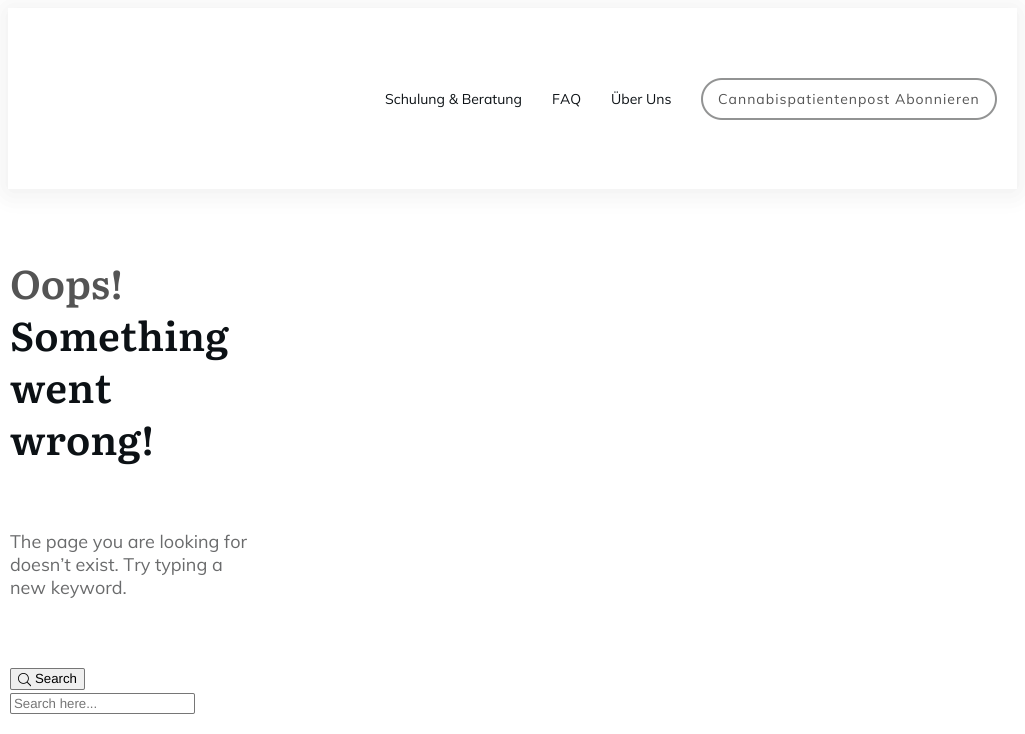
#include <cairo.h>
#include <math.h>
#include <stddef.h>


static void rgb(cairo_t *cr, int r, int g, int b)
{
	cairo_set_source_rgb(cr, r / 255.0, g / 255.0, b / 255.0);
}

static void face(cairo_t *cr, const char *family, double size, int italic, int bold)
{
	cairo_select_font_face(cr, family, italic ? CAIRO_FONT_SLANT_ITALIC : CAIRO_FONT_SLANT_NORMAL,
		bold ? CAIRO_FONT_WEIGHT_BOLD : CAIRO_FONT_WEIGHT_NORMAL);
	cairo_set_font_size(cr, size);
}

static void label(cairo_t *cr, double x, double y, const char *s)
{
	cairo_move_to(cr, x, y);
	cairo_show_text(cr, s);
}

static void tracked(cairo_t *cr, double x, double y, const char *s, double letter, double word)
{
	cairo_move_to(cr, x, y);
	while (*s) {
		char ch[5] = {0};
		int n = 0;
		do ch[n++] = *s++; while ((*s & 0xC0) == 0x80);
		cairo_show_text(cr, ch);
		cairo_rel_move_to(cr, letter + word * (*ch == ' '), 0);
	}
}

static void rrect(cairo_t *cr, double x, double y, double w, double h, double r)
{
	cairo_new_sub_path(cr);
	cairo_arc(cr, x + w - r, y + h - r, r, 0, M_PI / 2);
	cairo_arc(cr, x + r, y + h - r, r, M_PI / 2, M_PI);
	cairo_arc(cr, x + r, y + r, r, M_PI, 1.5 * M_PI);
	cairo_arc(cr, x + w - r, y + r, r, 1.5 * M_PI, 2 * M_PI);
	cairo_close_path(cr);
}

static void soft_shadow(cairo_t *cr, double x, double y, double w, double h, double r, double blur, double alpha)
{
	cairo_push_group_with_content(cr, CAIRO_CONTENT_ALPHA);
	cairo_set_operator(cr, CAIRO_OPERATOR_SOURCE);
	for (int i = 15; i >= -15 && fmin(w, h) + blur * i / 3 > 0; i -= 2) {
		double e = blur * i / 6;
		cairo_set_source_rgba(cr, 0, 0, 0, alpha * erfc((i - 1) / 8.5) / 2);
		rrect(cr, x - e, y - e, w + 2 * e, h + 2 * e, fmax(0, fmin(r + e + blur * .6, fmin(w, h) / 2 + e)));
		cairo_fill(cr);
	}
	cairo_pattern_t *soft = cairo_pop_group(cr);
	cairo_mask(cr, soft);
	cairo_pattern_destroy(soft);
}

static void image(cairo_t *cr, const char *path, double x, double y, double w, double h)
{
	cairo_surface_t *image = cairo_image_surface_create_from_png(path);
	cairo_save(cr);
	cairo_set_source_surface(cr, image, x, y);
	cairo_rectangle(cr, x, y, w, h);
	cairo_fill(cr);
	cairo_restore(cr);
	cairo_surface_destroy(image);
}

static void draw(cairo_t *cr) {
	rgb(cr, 255, 255, 255);
	cairo_paint(cr);
	cairo_save(cr);
	cairo_set_fill_rule(cr, CAIRO_FILL_RULE_EVEN_ODD);
	cairo_new_path(cr);
	cairo_move_to(cr, 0, 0);
	cairo_line_to(cr, 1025, 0);
	cairo_line_to(cr, 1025, 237);
	cairo_line_to(cr, 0, 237);
	cairo_close_path(cr);
	cairo_move_to(cr, 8, 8);
	cairo_line_to(cr, 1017, 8);
	cairo_line_to(cr, 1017, 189);
	cairo_line_to(cr, 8, 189);
	cairo_close_path(cr);
	cairo_clip(cr);
	rgb(cr, 0, 0, 0);
	soft_shadow(cr, 8, 10, 1009, 181, 0, 15, 0.08);
	cairo_restore(cr);
	face(cr, "Muli", 14, 0, 0);
	rgb(cr, 12, 17, 21);
	label(cr, 385, 104, "Schulung & Beratung");
	label(cr, 552, 104, "FAQ");
	label(cr, 611, 104, "Über Uns");
	rrect(cr, 702, 79, 294, 40, 20);
	rgb(cr, 146, 147, 147);
	cairo_stroke(cr);
	rgb(cr, 84, 84, 84);
	tracked(cr, 718, 104, "Cannabispatientenpost Abonnieren", 1, 0);
	face(cr, "Literata SemiBold", 40, 0, 0);
	label(cr, 10, 299, "Oops!");
	rgb(cr, 12, 17, 21);
	label(cr, 10, 351, "Something");
	label(cr, 10, 403, "went");
	label(cr, 10, 455, "wrong!");
	face(cr, "Muli", 18, 0, 0);
	rgb(cr, 106, 107, 108);
	label(cr, 10, 548, "The page you are looking for");
	label(cr, 10, 571, "doesn’t exist. Try typing a");
	label(cr, 10, 594, "new keyword.");
	rgb(cr, 239, 239, 239);
	rrect(cr, 10.5, 668.5, 74, 21, 1.5);
	cairo_fill_preserve(cr);
	rgb(cr, 118, 118, 118);
	cairo_set_line_width(cr, 1);
	cairo_stroke(cr);
	image(cr, "image0.png", 18, 673, 13, 14);
	face(cr, "Liberation Sans", 13.25, 0, 0);
	rgb(cr, 0, 0, 0);
	label(cr, 35, 683, "Search");
	rrect(cr, 10.5, 693.5, 184, 20, 1.5);
	rgb(cr, 118, 118, 118);
	cairo_stroke(cr);
	rgb(cr, 117, 117, 117);
	label(cr, 14, 708, "Search here...");
}

int main(void) {
	cairo_surface_t *surface = cairo_image_surface_create(CAIRO_FORMAT_RGB24, 1025, 734);
	cairo_t *cr = cairo_create(surface);
	cairo_font_options_t *options = cairo_font_options_create();
	cairo_font_options_set_hint_metrics(options, CAIRO_HINT_METRICS_OFF);
	cairo_font_options_set_hint_style(options, CAIRO_HINT_STYLE_NONE);
	cairo_set_font_options(cr, options);
	cairo_set_miter_limit(cr, 4);
	draw(cr);
	cairo_surface_write_to_png(surface, "render.png");
	cairo_font_options_destroy(options);
	cairo_destroy(cr);
	cairo_surface_destroy(surface);
	return 0;
}
